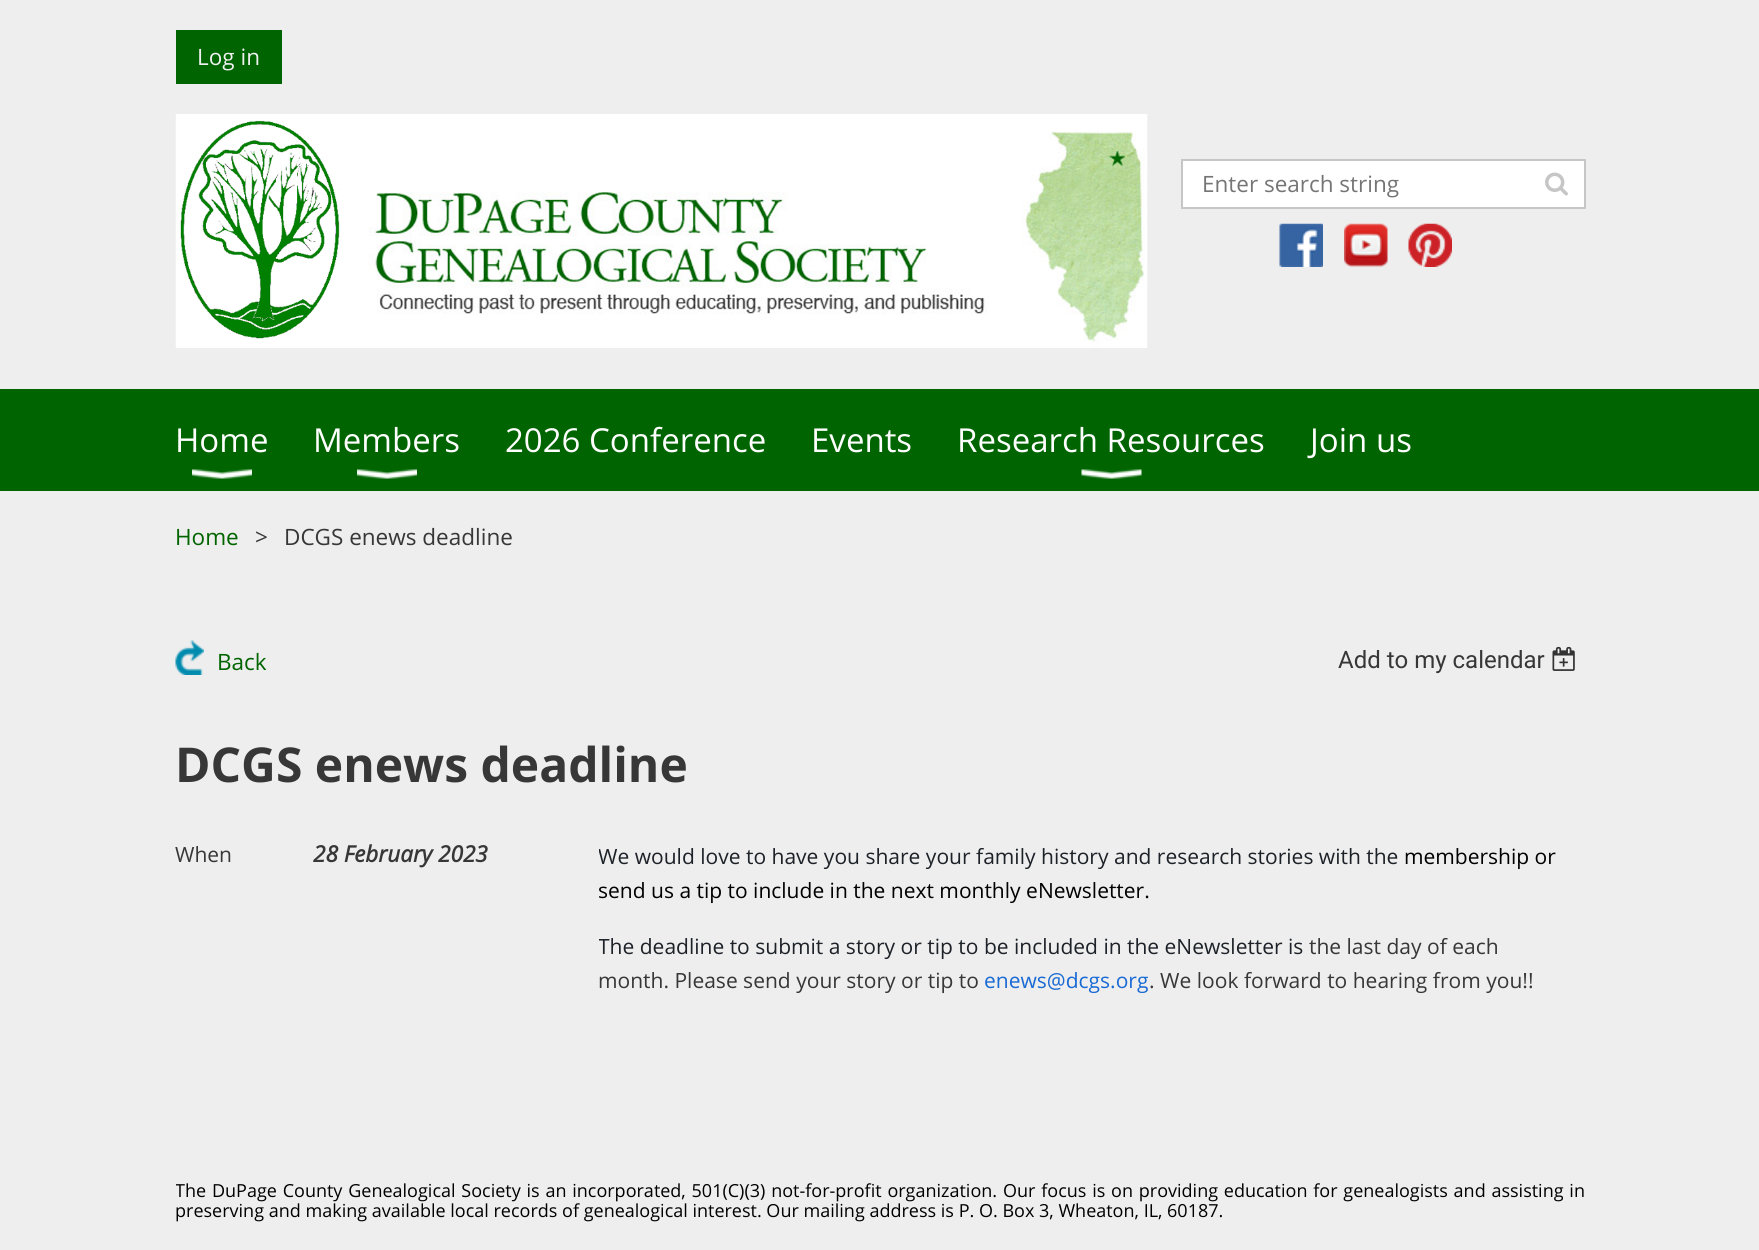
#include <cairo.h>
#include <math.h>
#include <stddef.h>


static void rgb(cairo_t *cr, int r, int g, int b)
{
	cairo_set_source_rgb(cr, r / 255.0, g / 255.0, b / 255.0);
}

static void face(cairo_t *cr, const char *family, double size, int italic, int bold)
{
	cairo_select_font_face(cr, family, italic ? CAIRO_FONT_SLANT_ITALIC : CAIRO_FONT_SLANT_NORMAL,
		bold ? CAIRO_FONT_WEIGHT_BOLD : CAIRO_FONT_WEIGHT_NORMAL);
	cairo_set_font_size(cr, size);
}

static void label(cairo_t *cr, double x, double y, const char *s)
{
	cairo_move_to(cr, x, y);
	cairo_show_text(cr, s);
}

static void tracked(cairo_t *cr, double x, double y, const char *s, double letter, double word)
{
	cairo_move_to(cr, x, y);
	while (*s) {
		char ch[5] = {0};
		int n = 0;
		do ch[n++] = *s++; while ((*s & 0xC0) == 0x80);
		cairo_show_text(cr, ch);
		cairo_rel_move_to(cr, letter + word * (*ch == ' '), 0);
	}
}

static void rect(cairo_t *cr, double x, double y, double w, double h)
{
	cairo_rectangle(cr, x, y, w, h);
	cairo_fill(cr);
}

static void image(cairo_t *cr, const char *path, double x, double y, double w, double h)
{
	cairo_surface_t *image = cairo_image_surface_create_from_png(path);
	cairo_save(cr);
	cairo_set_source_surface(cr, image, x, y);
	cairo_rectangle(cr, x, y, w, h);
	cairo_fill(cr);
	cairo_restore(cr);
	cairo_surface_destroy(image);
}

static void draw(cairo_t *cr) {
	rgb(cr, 238, 238, 238);
	cairo_paint(cr);
	rgb(cr, 0, 100, 0);
	rect(cr, 176, 30, 106, 54);
	face(cr, "Open Sans", 22.5, 0, 0);
	rgb(cr, 240, 240, 240);
	label(cr, 197, 65, "Log in");
	image(cr, "image0.png", 175, 114, 973, 234);
	rgb(cr, 255, 255, 255);
	cairo_rectangle(cr, 1182, 160, 403, 48);
	cairo_fill_preserve(cr);
	rgb(cr, 198, 198, 198);
	cairo_stroke(cr);
	rgb(cr, 117, 117, 117);
	label(cr, 1202, 192, "Enter search string");
	image(cr, "image1.png", 1545, 172, 23, 24);
	image(cr, "image2.png", 1279, 223, 44, 44);
	image(cr, "image3.png", 1344, 223, 44, 44);
	image(cr, "image4.png", 1408, 223, 44, 44);
	rgb(cr, 0, 100, 0);
	rect(cr, 0, 389, 1759, 102);
	face(cr, "Open Sans", 33, 0, 0);
	rgb(cr, 255, 255, 255);
	label(cr, 175, 452, "Home");
	image(cr, "image5.png", 192, 469, 60, 10);
	label(cr, 313, 452, "Members");
	image(cr, "image6.png", 357, 469, 60, 10);
	label(cr, 505, 452, "2026 Conference");
	label(cr, 811, 452, "Events");
	label(cr, 957, 452, "Research Resources");
	image(cr, "image7.png", 1081, 469, 61, 10);
	label(cr, 1310, 452, "Join us");
	face(cr, "Open Sans", 22.5, 0, 0);
	rgb(cr, 0, 100, 0);
	label(cr, 175, 545, "Home");
	rgb(cr, 55, 55, 55);
	label(cr, 255, 545, ">");
	label(cr, 284, 545, "DCGS enews deadline");
	image(cr, "image8.png", 175, 640, 29, 35);
	rgb(cr, 0, 100, 0);
	label(cr, 217, 670, "Back");
	face(cr, "Roboto", 24, 0, 0);
	rgb(cr, 55, 55, 55);
	label(cr, 1338, 668, "Add to my calendar");
	image(cr, "image9.png", 1552, 646, 23, 25);
	face(cr, "Open Sans", 48, 0, 1);
	label(cr, 175, 782, "DCGS enews deadline");
	face(cr, "Open Sans", 21, 0, 0);
	label(cr, 175, 862, "When");
	face(cr, "Open Sans", 22.5, 1, 1);
	label(cr, 313, 862, "28 February 2023");
	cairo_save(cr);
	cairo_rectangle(cr, 599, 839, 987, 235);
	cairo_clip(cr);
	face(cr, "Open Sans", 21, 0, 0);
	rgb(cr, 29, 34, 40);
	label(cr, 598, 864, "We would love to have you share your family history and research stories with the");
	cairo_restore(cr);
	face(cr, "Open Sans", 21, 0, 0);
	rgb(cr, 0, 0, 0);
	label(cr, 1404, 864, "membership or");
	cairo_save(cr);
	cairo_rectangle(cr, 599, 839, 987, 235);
	cairo_clip(cr);
	label(cr, 598, 898, "send us a tip to include in the next monthly eNewsletter.");
	rgb(cr, 29, 34, 40);
	label(cr, 598, 954, "The deadline to submit a story or tip to be included in the eNewsletter is");
	cairo_restore(cr);
	rgb(cr, 55, 55, 55);
	label(cr, 1309, 954, "the last day of each");
	label(cr, 598, 988, "month. Please send your story or tip to");
	rgb(cr, 25, 106, 212);
	label(cr, 984, 988, "enews@dcgs.org");
	rgb(cr, 55, 55, 55);
	label(cr, 1149, 988, ". We look forward to hearing from you!!");
	cairo_save(cr);
	cairo_rectangle(cr, 176, 1179, 1410, 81);
	cairo_clip(cr);
	face(cr, "Open Sans", 18, 0, 0);
	rgb(cr, 0, 0, 0);
	label(cr, 175, 1197, "T");
	cairo_restore(cr);
	face(cr, "Open Sans", 18, 0, 0);
	rgb(cr, 0, 0, 0);
	tracked(cr, 185, 1197, "he DuPage County Genealogical Society is an incorporated, 501(C)(3) not-for-profit organization.", 0, 1.1);
	tracked(cr, 1003, 1197, "Our focus is on providing education for genealogists and assisting in", 0, 1.1);
	label(cr, 175, 1217, "preserving and making available local records of genealogical interest. Our mailing address is P. O. Box 3, Wheaton, IL, 60187.");
}

int main(void) {
	cairo_surface_t *surface = cairo_image_surface_create(CAIRO_FORMAT_RGB24, 1759, 1250);
	cairo_t *cr = cairo_create(surface);
	cairo_font_options_t *options = cairo_font_options_create();
	cairo_font_options_set_hint_metrics(options, CAIRO_HINT_METRICS_OFF);
	cairo_font_options_set_hint_style(options, CAIRO_HINT_STYLE_NONE);
	cairo_set_font_options(cr, options);
	cairo_set_miter_limit(cr, 4);
	draw(cr);
	cairo_surface_write_to_png(surface, "render.png");
	cairo_font_options_destroy(options);
	cairo_destroy(cr);
	cairo_surface_destroy(surface);
	return 0;
}
